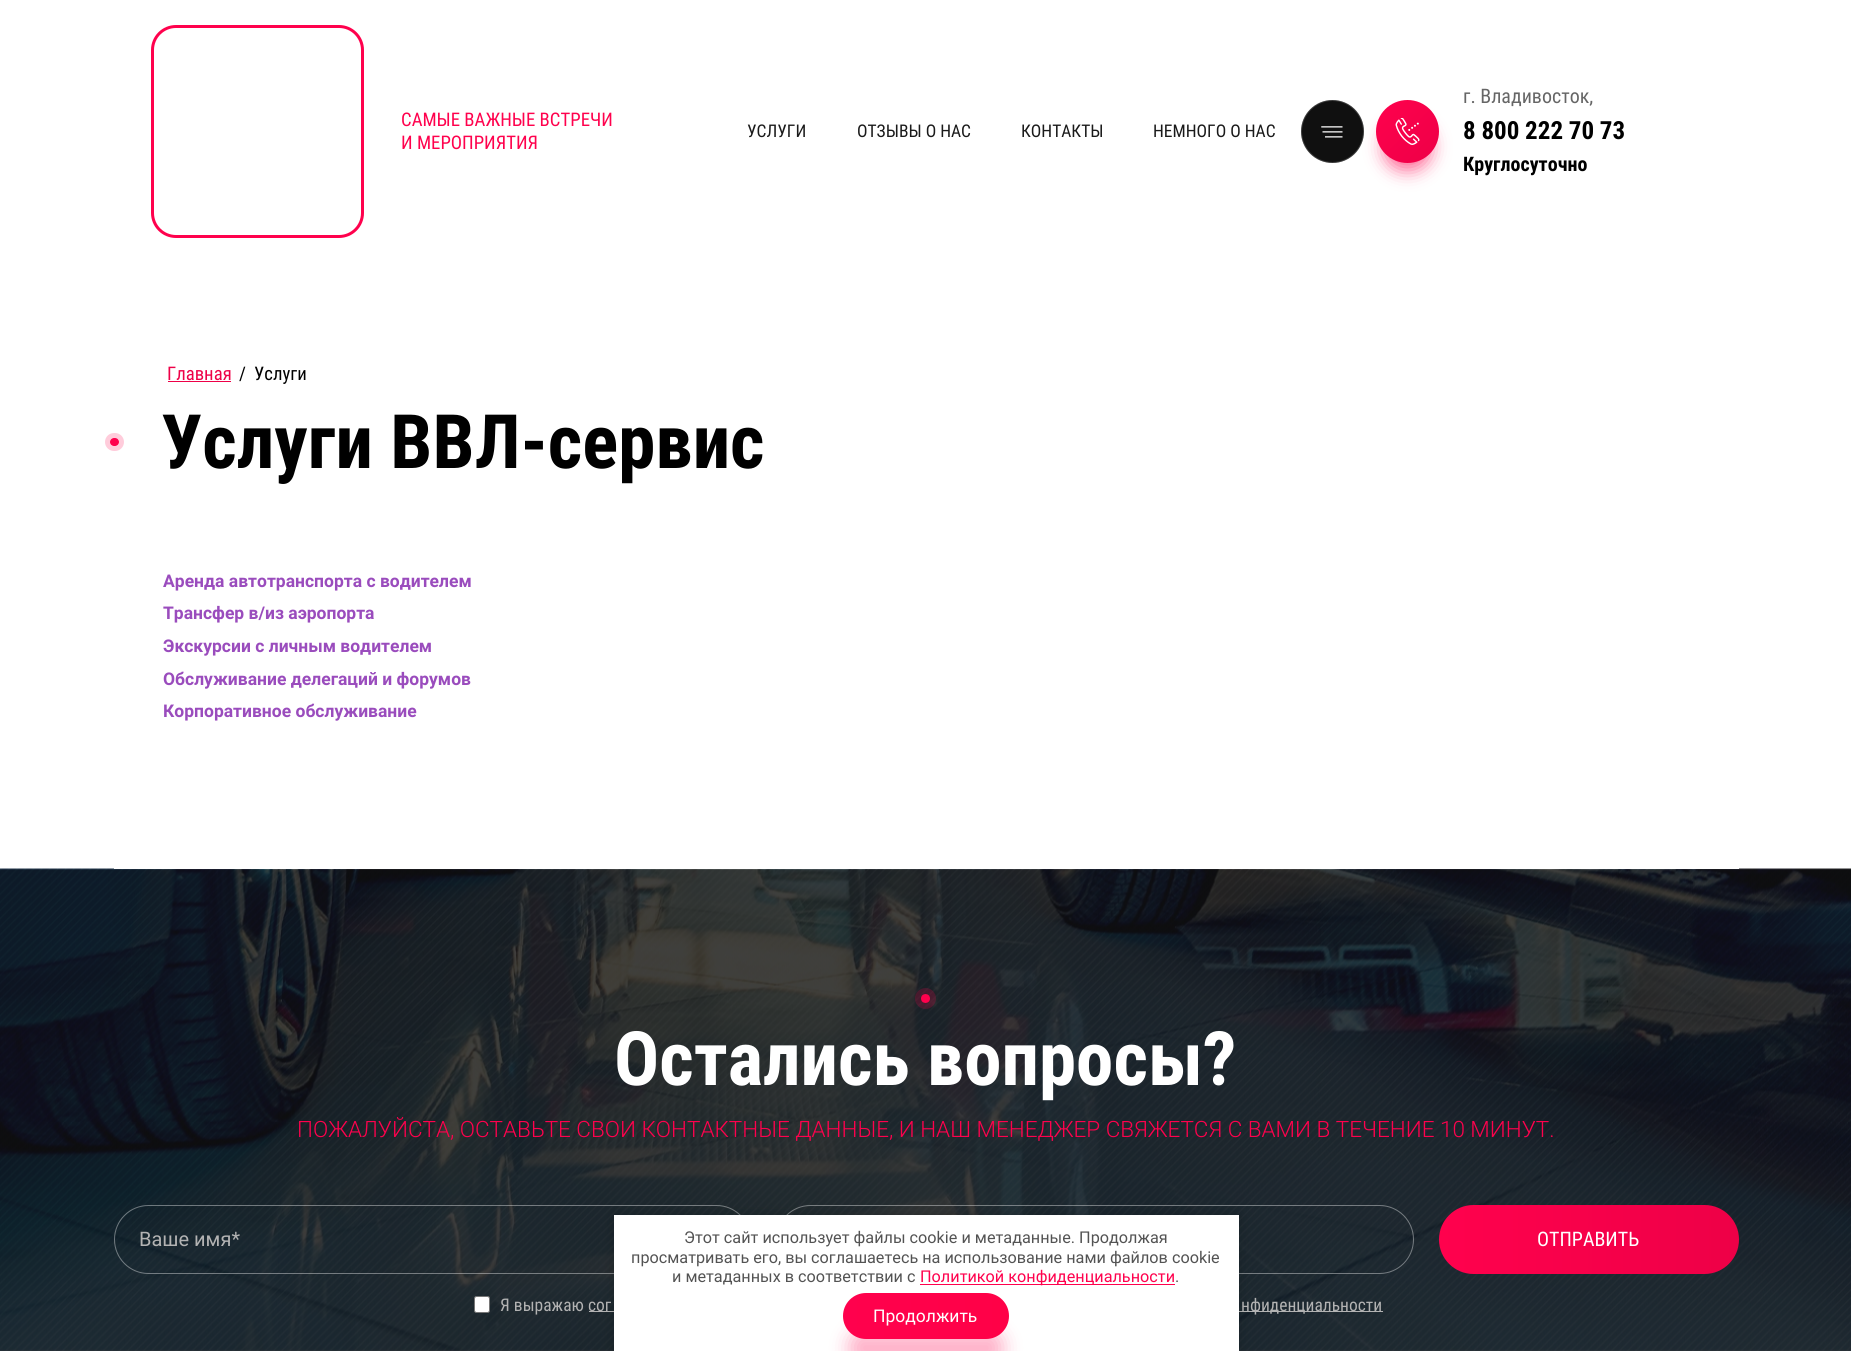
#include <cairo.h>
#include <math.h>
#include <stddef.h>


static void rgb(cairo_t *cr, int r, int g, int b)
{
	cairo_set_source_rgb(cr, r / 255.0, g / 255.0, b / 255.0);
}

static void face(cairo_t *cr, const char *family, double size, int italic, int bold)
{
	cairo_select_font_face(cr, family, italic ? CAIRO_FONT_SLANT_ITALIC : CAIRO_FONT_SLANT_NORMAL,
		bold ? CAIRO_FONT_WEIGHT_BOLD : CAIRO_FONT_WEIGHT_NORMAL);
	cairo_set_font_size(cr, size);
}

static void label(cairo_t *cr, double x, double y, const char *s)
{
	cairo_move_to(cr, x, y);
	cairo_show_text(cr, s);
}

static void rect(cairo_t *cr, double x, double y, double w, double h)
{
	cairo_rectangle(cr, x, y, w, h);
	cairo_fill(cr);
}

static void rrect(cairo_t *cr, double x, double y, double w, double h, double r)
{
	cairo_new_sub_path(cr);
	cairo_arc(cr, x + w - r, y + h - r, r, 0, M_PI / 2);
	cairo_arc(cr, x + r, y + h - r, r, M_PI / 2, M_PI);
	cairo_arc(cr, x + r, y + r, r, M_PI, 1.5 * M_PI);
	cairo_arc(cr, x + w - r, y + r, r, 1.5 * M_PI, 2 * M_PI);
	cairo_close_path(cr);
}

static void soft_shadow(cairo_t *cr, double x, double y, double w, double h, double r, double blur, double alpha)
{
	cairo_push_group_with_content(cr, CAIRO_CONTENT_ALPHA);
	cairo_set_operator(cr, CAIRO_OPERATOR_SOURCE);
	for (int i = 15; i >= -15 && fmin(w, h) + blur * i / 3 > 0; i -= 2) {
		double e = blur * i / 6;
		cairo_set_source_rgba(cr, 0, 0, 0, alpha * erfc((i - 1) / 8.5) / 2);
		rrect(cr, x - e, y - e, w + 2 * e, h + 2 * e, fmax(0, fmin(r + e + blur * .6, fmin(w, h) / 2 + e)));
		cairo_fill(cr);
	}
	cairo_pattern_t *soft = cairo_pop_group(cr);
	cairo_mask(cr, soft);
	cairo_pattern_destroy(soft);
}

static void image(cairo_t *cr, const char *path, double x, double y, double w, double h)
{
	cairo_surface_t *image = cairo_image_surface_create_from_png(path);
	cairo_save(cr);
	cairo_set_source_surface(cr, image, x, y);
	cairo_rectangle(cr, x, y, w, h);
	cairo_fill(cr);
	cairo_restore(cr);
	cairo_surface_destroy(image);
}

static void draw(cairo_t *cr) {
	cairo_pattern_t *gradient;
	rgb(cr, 255, 255, 255);
	cairo_paint(cr);
	rrect(cr, 152.5, 26.5, 210, 210, 23.5);
	rgb(cr, 255, 1, 77);
	cairo_set_line_width(cr, 3);
	cairo_stroke(cr);
	face(cr, "Roboto Condensed", 18.75, 0, 0);
	label(cr, 401, 126, "САМЫЕ ВАЖНЫЕ ВСТРЕЧИ");
	label(cr, 401, 149, "И МЕРОПРИЯТИЯ");
	face(cr, "Roboto Condensed", 17.5, 0, 0);
	rgb(cr, 26, 26, 26);
	label(cr, 747, 137, "УСЛУГИ");
	label(cr, 857, 137, "ОТЗЫВЫ О НАС");
	label(cr, 1021, 137, "КОНТАКТЫ");
	label(cr, 1153, 137, "НЕМНОГО О НАС");
	rgb(cr, 255, 1, 77);
	soft_shadow(cr, 1384, 123, 47, 47, 23.5, 9, 0.6);
	rgb(cr, 16, 16, 16);
	cairo_arc(cr, 1332.5, 131.5, 31.5, 0, 2 * M_PI);
	cairo_fill(cr);
	image(cr, "image0.png", 1321, 126, 22, 12);
	cairo_arc(cr, 1332.5, 131.5, 31, 0, 2 * M_PI);
	cairo_set_source_rgba(cr, 1, 1, 1, 0.18);
	cairo_set_line_width(cr, 1);
	cairo_stroke(cr);
	gradient = cairo_pattern_create_linear(1376, 100, 1439, 163);
	cairo_pattern_add_color_stop_rgba(gradient, 0, 1, 0.004, 0.302, 1);
	cairo_pattern_add_color_stop_rgba(gradient, 0.99, 0.933, 0, 0.278, 1);
	cairo_set_source(cr, gradient);
	cairo_pattern_destroy(gradient);
	cairo_arc(cr, 1407.5, 131.5, 31.5, 0, 2 * M_PI);
	cairo_fill(cr);
	image(cr, "image1.png", 1395, 118, 25, 27);
	face(cr, "Roboto Condensed", 20, 0, 0);
	rgb(cr, 102, 102, 102);
	label(cr, 1463, 103, "г. Владивосток,");
	face(cr, "Roboto Condensed", 25, 0, 1);
	rgb(cr, 0, 0, 0);
	label(cr, 1463, 139, "8 800 222 70 73");
	face(cr, "Roboto Condensed", 20, 0, 1);
	label(cr, 1463, 171, "Круглосуточно");
	image(cr, "image2.png", 0, 868, 1851, 483);
	rgb(cr, 255, 255, 255);
	rect(cr, 114, 868, 1625, 1);
	face(cr, "Roboto Condensed", 18.75, 0, 0);
	rgb(cr, 238, 0, 71);
	label(cr, 167, 380, "Главная");
	rect(cr, 168, 381, 63, 1);
	rgb(cr, 0, 0, 0);
	label(cr, 239, 380, "/");
	label(cr, 254, 380, "Услуги");
	rrect(cr, 107.5, 435.5, 14, 13, 6.5);
	rgb(cr, 255, 204, 219);
	cairo_set_line_width(cr, 5);
	cairo_stroke(cr);
	rgb(cr, 255, 1, 77);
	rrect(cr, 110, 438, 9, 8, 4);
	cairo_fill(cr);
	face(cr, "Roboto Condensed", 75, 0, 1);
	rgb(cr, 0, 0, 0);
	label(cr, 161, 468, "Услуги ВВЛ-сервис");
	face(cr, "Roboto", 17.5, 0, 1);
	rgb(cr, 154, 76, 189);
	label(cr, 163, 587, "Аренда автотранспорта с водителем");
	label(cr, 163, 619, "Трансфер в/из аэропорта");
	label(cr, 163, 652, "Экскурсии с личным водителем");
	label(cr, 163, 685, "Обслуживание делегаций и форумов");
	label(cr, 163, 717, "Корпоративное обслуживание");
	cairo_new_path(cr);
	cairo_arc(cr, 925.5, 998.5, 7.5, 0, 2 * M_PI);
	cairo_set_source_rgba(cr, 1, 0.004, 0.302, 0.2);
	cairo_set_line_width(cr, 6);
	cairo_stroke(cr);
	rgb(cr, 255, 1, 77);
	cairo_arc(cr, 925.5, 998.5, 4.5, 0, 2 * M_PI);
	cairo_fill(cr);
	face(cr, "Roboto Condensed", 75, 0, 1);
	rgb(cr, 255, 255, 255);
	label(cr, 614, 1085, "Остались вопросы?");
	face(cr, "Roboto Light", 22.5, 0, 0);
	rgb(cr, 255, 1, 77);
	label(cr, 297, 1137, "ПОЖАЛУЙСТА, ОСТАВЬТЕ СВОИ КОНТАКТНЫЕ ДАННЫЕ, И НАШ МЕНЕДЖЕР СВЯЖЕТСЯ С ВАМИ В ТЕЧЕНИЕ 10 МИНУТ.");
	rrect(cr, 114.5, 1205.5, 636, 68, 34);
	cairo_set_source_rgba(cr, 1, 1, 1, 0.39);
	cairo_set_line_width(cr, 1);
	cairo_stroke(cr);
	face(cr, "Roboto", 20, 0, 0);
	rgb(cr, 179, 179, 179);
	label(cr, 139, 1246, "Ваше имя*");
	rrect(cr, 776.5, 1205.5, 637, 68, 34);
	cairo_set_source_rgba(cr, 1, 1, 1, 0.39);
	cairo_stroke(cr);
	gradient = cairo_pattern_create_linear(1439, 1239, 1739, 1239);
	cairo_pattern_add_color_stop_rgba(gradient, 0, 1, 0.004, 0.302, 1);
	cairo_pattern_add_color_stop_rgba(gradient, 1, 0.933, 0, 0.278, 1);
	cairo_set_source(cr, gradient);
	cairo_pattern_destroy(gradient);
	rrect(cr, 1439, 1205, 300, 69, 34.5);
	cairo_fill(cr);
	face(cr, "Roboto Condensed", 20, 0, 0);
	rgb(cr, 255, 255, 255);
	label(cr, 1537, 1246, "ОТПРАВИТЬ");
	rrect(cr, 474.5, 1296.5, 15, 16, 2);
	cairo_fill_preserve(cr);
	rgb(cr, 118, 118, 118);
	cairo_stroke(cr);
	face(cr, "Roboto Condensed", 17.5, 0, 0);
	rgb(cr, 179, 179, 179);
	label(cr, 500, 1311, "Я выражаю");
	rect(cr, 589, 1311, 25, 1);
	label(cr, 588, 1311, "сог");
	rect(cr, 1239, 1311, 144, 1);
	label(cr, 1241, 1311, "нфиденциальности");
	rgb(cr, 0, 0, 0);
	soft_shadow(cr, 614, 1216, 625, 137, 0, 6, 0.15);
	rgb(cr, 255, 255, 255);
	rect(cr, 614, 1215, 625, 136);
	face(cr, "Roboto", 16.25, 0, 0);
	rgb(cr, 83, 83, 83);
	label(cr, 684, 1243, "Этот сайт использует файлы cookie и метаданные. Продолжая");
	label(cr, 631, 1263, "просматривать его, вы соглашаетесь на использование нами файлов cookie");
	label(cr, 672, 1282, "и метаданных в соответствии с");
	rgb(cr, 255, 1, 77);
	rect(cr, 920, 1284, 255, 1);
	label(cr, 920, 1282, "Политикой конфиденциальности");
	rgb(cr, 83, 83, 83);
	label(cr, 1175, 1282, ".");
	rgb(cr, 255, 1, 77);
	soft_shadow(cr, 849, 1331, 154, 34, 17, 9.5, 0.3);
	gradient = cairo_pattern_create_linear(843, 1316, 1009, 1316);
	cairo_pattern_add_color_stop_rgba(gradient, 0, 1, 0.004, 0.302, 1);
	cairo_pattern_add_color_stop_rgba(gradient, 1, 1, 0.004, 0.278, 1);
	cairo_set_source(cr, gradient);
	cairo_pattern_destroy(gradient);
	rrect(cr, 843, 1293, 166, 46, 23);
	cairo_fill(cr);
	face(cr, "Roboto", 17.5, 0, 0);
	rgb(cr, 255, 255, 255);
	label(cr, 873, 1322, "Продолжить");
}

int main(void) {
	cairo_surface_t *surface = cairo_image_surface_create(CAIRO_FORMAT_RGB24, 1851, 1351);
	cairo_t *cr = cairo_create(surface);
	cairo_font_options_t *options = cairo_font_options_create();
	cairo_font_options_set_hint_metrics(options, CAIRO_HINT_METRICS_OFF);
	cairo_font_options_set_hint_style(options, CAIRO_HINT_STYLE_NONE);
	cairo_set_font_options(cr, options);
	cairo_set_miter_limit(cr, 4);
	draw(cr);
	cairo_surface_write_to_png(surface, "render.png");
	cairo_font_options_destroy(options);
	cairo_destroy(cr);
	cairo_surface_destroy(surface);
	return 0;
}
